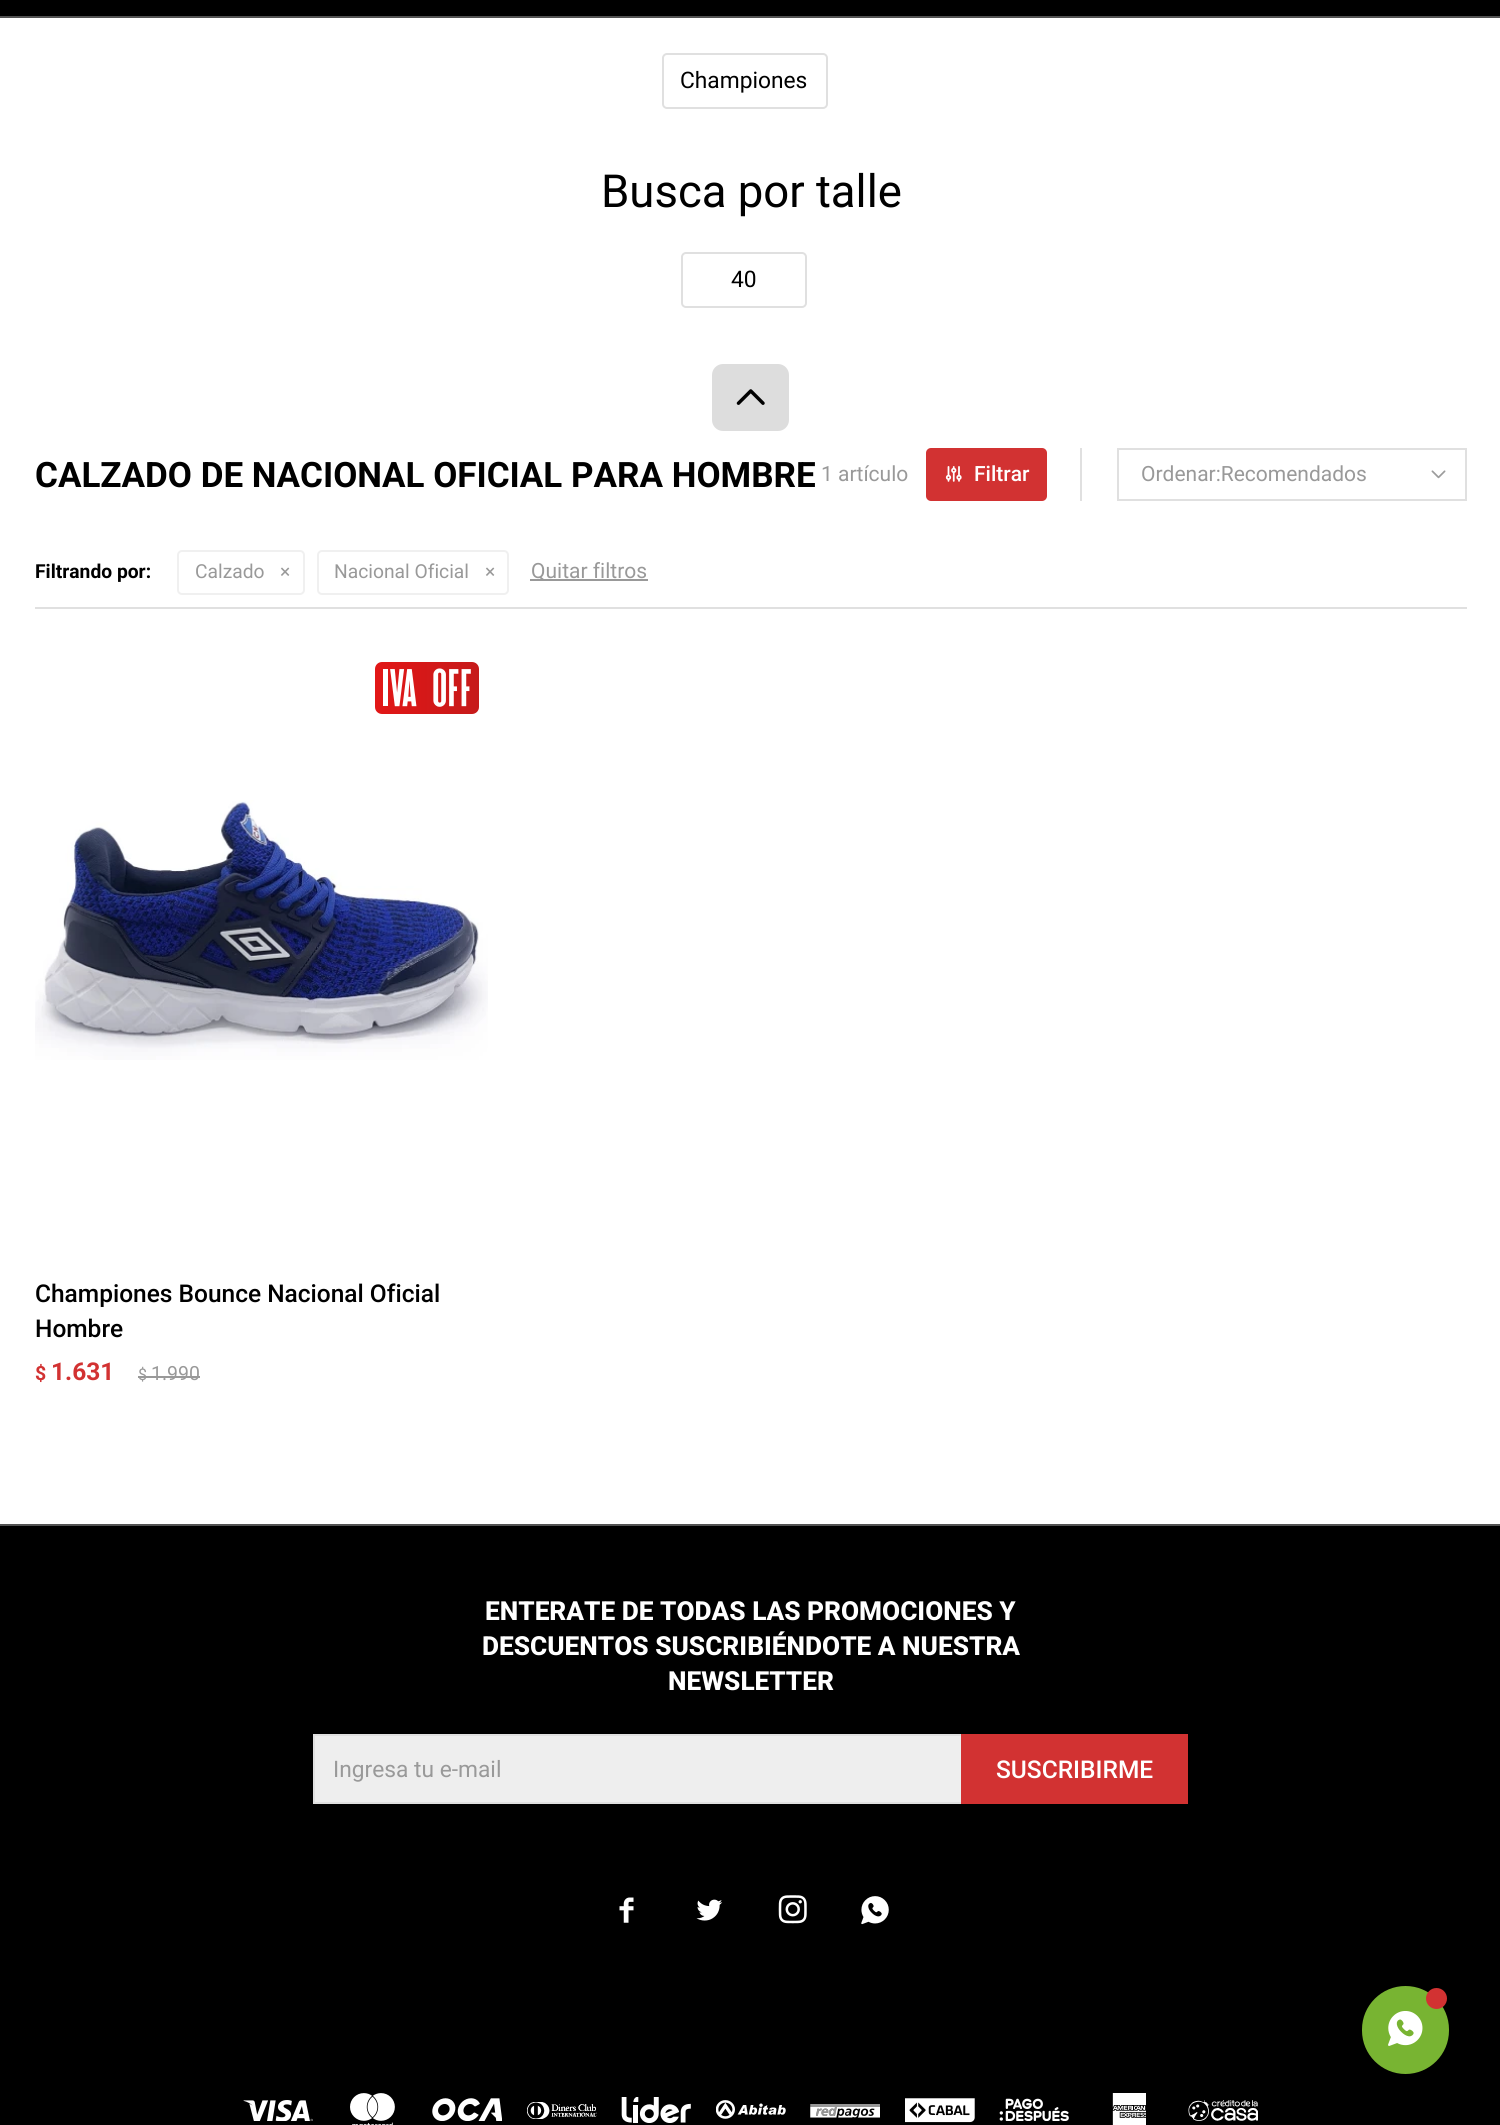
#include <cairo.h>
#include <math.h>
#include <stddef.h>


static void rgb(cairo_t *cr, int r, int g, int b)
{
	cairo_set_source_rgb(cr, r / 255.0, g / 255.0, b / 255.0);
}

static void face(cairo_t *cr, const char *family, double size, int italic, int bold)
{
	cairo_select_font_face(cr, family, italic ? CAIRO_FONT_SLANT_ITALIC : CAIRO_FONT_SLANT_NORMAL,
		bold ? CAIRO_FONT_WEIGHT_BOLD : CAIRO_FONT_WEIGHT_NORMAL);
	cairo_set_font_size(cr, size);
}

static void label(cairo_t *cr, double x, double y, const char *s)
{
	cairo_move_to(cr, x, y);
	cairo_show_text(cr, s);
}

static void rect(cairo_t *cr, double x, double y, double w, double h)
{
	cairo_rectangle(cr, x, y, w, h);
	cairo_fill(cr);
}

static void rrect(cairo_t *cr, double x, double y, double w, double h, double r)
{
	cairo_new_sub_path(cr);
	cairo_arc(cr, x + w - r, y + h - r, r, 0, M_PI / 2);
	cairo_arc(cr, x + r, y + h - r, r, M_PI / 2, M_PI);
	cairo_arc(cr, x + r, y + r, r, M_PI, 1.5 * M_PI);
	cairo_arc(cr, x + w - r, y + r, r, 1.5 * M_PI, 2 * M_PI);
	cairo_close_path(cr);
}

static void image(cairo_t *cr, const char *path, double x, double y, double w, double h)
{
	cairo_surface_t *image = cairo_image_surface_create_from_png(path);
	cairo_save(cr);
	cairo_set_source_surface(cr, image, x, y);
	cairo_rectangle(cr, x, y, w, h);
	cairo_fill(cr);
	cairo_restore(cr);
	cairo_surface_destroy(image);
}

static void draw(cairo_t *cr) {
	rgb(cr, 255, 255, 255);
	cairo_paint(cr);
	rgb(cr, 0, 0, 0);
	rect(cr, 0, 0, 1500, 16);
	rgb(cr, 82, 82, 82);
	rect(cr, 0, 16, 1500, 2);
	rrect(cr, 663, 54, 164, 54, 4);
	rgb(cr, 224, 224, 224);
	cairo_stroke(cr);
	face(cr, "Roboto", 22.75, 0, 0);
	rgb(cr, 0, 0, 0);
	label(cr, 680, 88, "Championes");
	face(cr, "Roboto", 45.5, 0, 0);
	label(cr, 601, 207, "Busca por talle");
	rrect(cr, 682, 253, 124, 54, 4);
	rgb(cr, 224, 224, 224);
	cairo_stroke(cr);
	face(cr, "Roboto", 22.75, 0, 0);
	rgb(cr, 0, 0, 0);
	label(cr, 731, 287, "40");
	rgb(cr, 221, 221, 221);
	rrect(cr, 712, 364, 77, 67, 11);
	cairo_fill(cr);
	image(cr, "image0.png", 736, 389, 29, 16);
	face(cr, "Roboto", 35, 0, 1);
	rgb(cr, 0, 0, 0);
	label(cr, 35, 487, "CALZADO DE NACIONAL OFICIAL PARA HOMBRE");
	face(cr, "Roboto", 21, 0, 0);
	rgb(cr, 153, 153, 153);
	label(cr, 821, 481, "1 artículo");
	rgb(cr, 210, 50, 50);
	rrect(cr, 926, 448, 121, 53, 5);
	cairo_fill(cr);
	image(cr, "image1.png", 945, 466, 17, 16);
	face(cr, "Roboto Medium", 21, 0, 0);
	rgb(cr, 255, 255, 255);
	label(cr, 974, 481, "Filtrar");
	rgb(cr, 224, 224, 224);
	rect(cr, 1080, 448, 2, 53);
	image(cr, "image2.png", 1431, 470, 15, 9);
	cairo_rectangle(cr, 1118, 449, 348, 51);
	cairo_stroke(cr);
	face(cr, "Roboto", 21, 0, 0);
	rgb(cr, 153, 153, 153);
	label(cr, 1141, 481, "Ordenar:Recomendados");
	rgb(cr, 224, 224, 224);
	rect(cr, 35, 607, 1432, 2);
	face(cr, "Roboto", 19.25, 0, 1);
	rgb(cr, 0, 0, 0);
	label(cr, 35, 578, "Filtrando por:");
	rrect(cr, 178, 551, 126, 43, 4);
	rgb(cr, 240, 240, 240);
	cairo_stroke(cr);
	face(cr, "Roboto", 19.25, 0, 0);
	rgb(cr, 153, 153, 153);
	label(cr, 195, 578, "Calzado");
	label(cr, 280, 578, "×");
	rrect(cr, 318, 551, 190, 43, 4);
	rgb(cr, 240, 240, 240);
	cairo_stroke(cr);
	rgb(cr, 153, 153, 153);
	label(cr, 334, 578, "Nacional Oficial");
	label(cr, 485, 578, "×");
	rect(cr, 530, 579, 118, 2);
	face(cr, "Roboto", 21, 0, 0);
	label(cr, 531, 578, "Quitar filtros");
	image(cr, "image3.png", 375, 662, 104, 52);
	image(cr, "image4.png", 35, 800, 453, 260);
	face(cr, "Roboto Medium", 24.5, 0, 0);
	rgb(cr, 0, 0, 0);
	label(cr, 35, 1302, "Championes Bounce Nacional Oficial");
	label(cr, 35, 1337, "Hombre");
	face(cr, "Roboto", 19.5, 0, 1);
	rgb(cr, 210, 50, 50);
	label(cr, 35, 1380, "$");
	face(cr, "Roboto", 24.5, 0, 1);
	label(cr, 51, 1380, "1.631");
	face(cr, "Roboto", 16, 0, 0);
	rgb(cr, 153, 153, 153);
	label(cr, 138, 1380, "$");
	face(cr, "Roboto", 19.5, 0, 0);
	label(cr, 151, 1380, "1.990");
	rect(cr, 138, 1376, 62, 2);
	rgb(cr, 0, 0, 0);
	rect(cr, 0, 1526, 1500, 599);
	rgb(cr, 82, 82, 82);
	rect(cr, 0, 1524, 1500, 2);
	face(cr, "Roboto ExtraBold", 26.25, 0, 0);
	rgb(cr, 255, 255, 255);
	label(cr, 485, 1620, "ENTERATE DE TODAS LAS PROMOCIONES Y");
	label(cr, 482, 1655, "DESCUENTOS SUSCRIBIÉNDOTE A NUESTRA");
	label(cr, 668, 1690, "NEWSLETTER");
	rgb(cr, 238, 238, 238);
	rect(cr, 315, 1736, 646, 66);
	cairo_rectangle(cr, 314, 1735, 873, 68);
	rgb(cr, 224, 224, 224);
	cairo_stroke(cr);
	face(cr, "Roboto", 22.75, 0, 0);
	rgb(cr, 153, 153, 153);
	label(cr, 333, 1777, "Ingresa tu e-mail");
	rgb(cr, 210, 50, 50);
	rect(cr, 961, 1734, 227, 70);
	face(cr, "Roboto Medium", 24.5, 0, 0);
	rgb(cr, 255, 255, 255);
	label(cr, 996, 1778, "SUSCRIBIRME");
	image(cr, "image5.png", 619, 1897, 15, 26);
	image(cr, "image6.png", 696, 1899, 27, 22);
	image(cr, "image7.png", 778, 1895, 29, 29);
	image(cr, "image8.png", 861, 1896, 28, 29);
	image(cr, "image9.png", 243, 2100, 70, 21);
	image(cr, "image10.png", 350, 2093, 45, 32);
	image(cr, "image11.png", 432, 2098, 70, 23);
	image(cr, "image12.png", 527, 2102, 70, 17);
	image(cr, "image13.png", 621, 2097, 70, 26);
	image(cr, "image14.png", 716, 2100, 70, 19);
	image(cr, "image15.png", 810, 2104, 70, 14);
	image(cr, "image16.png", 905, 2098, 70, 25);
	image(cr, "image17.png", 999, 2098, 70, 23);
	image(cr, "image18.png", 1112, 2093, 34, 32);
	image(cr, "image19.png", 1188, 2100, 70, 21);
	rgb(cr, 120, 180, 50);
	rrect(cr, 1362, 1986, 87, 88, 43.5);
	cairo_fill(cr);
	rgb(cr, 210, 50, 50);
	cairo_arc(cr, 1436.5, 1998.5, 10.5, 0, 2 * M_PI);
	cairo_fill(cr);
	image(cr, "image20.png", 1388, 2011, 35, 35);
}

int main(void) {
	cairo_surface_t *surface = cairo_image_surface_create(CAIRO_FORMAT_RGB24, 1500, 2125);
	cairo_t *cr = cairo_create(surface);
	cairo_font_options_t *options = cairo_font_options_create();
	cairo_font_options_set_hint_metrics(options, CAIRO_HINT_METRICS_OFF);
	cairo_font_options_set_hint_style(options, CAIRO_HINT_STYLE_NONE);
	cairo_set_font_options(cr, options);
	cairo_set_miter_limit(cr, 4);
	draw(cr);
	cairo_surface_write_to_png(surface, "render.png");
	cairo_font_options_destroy(options);
	cairo_destroy(cr);
	cairo_surface_destroy(surface);
	return 0;
}
